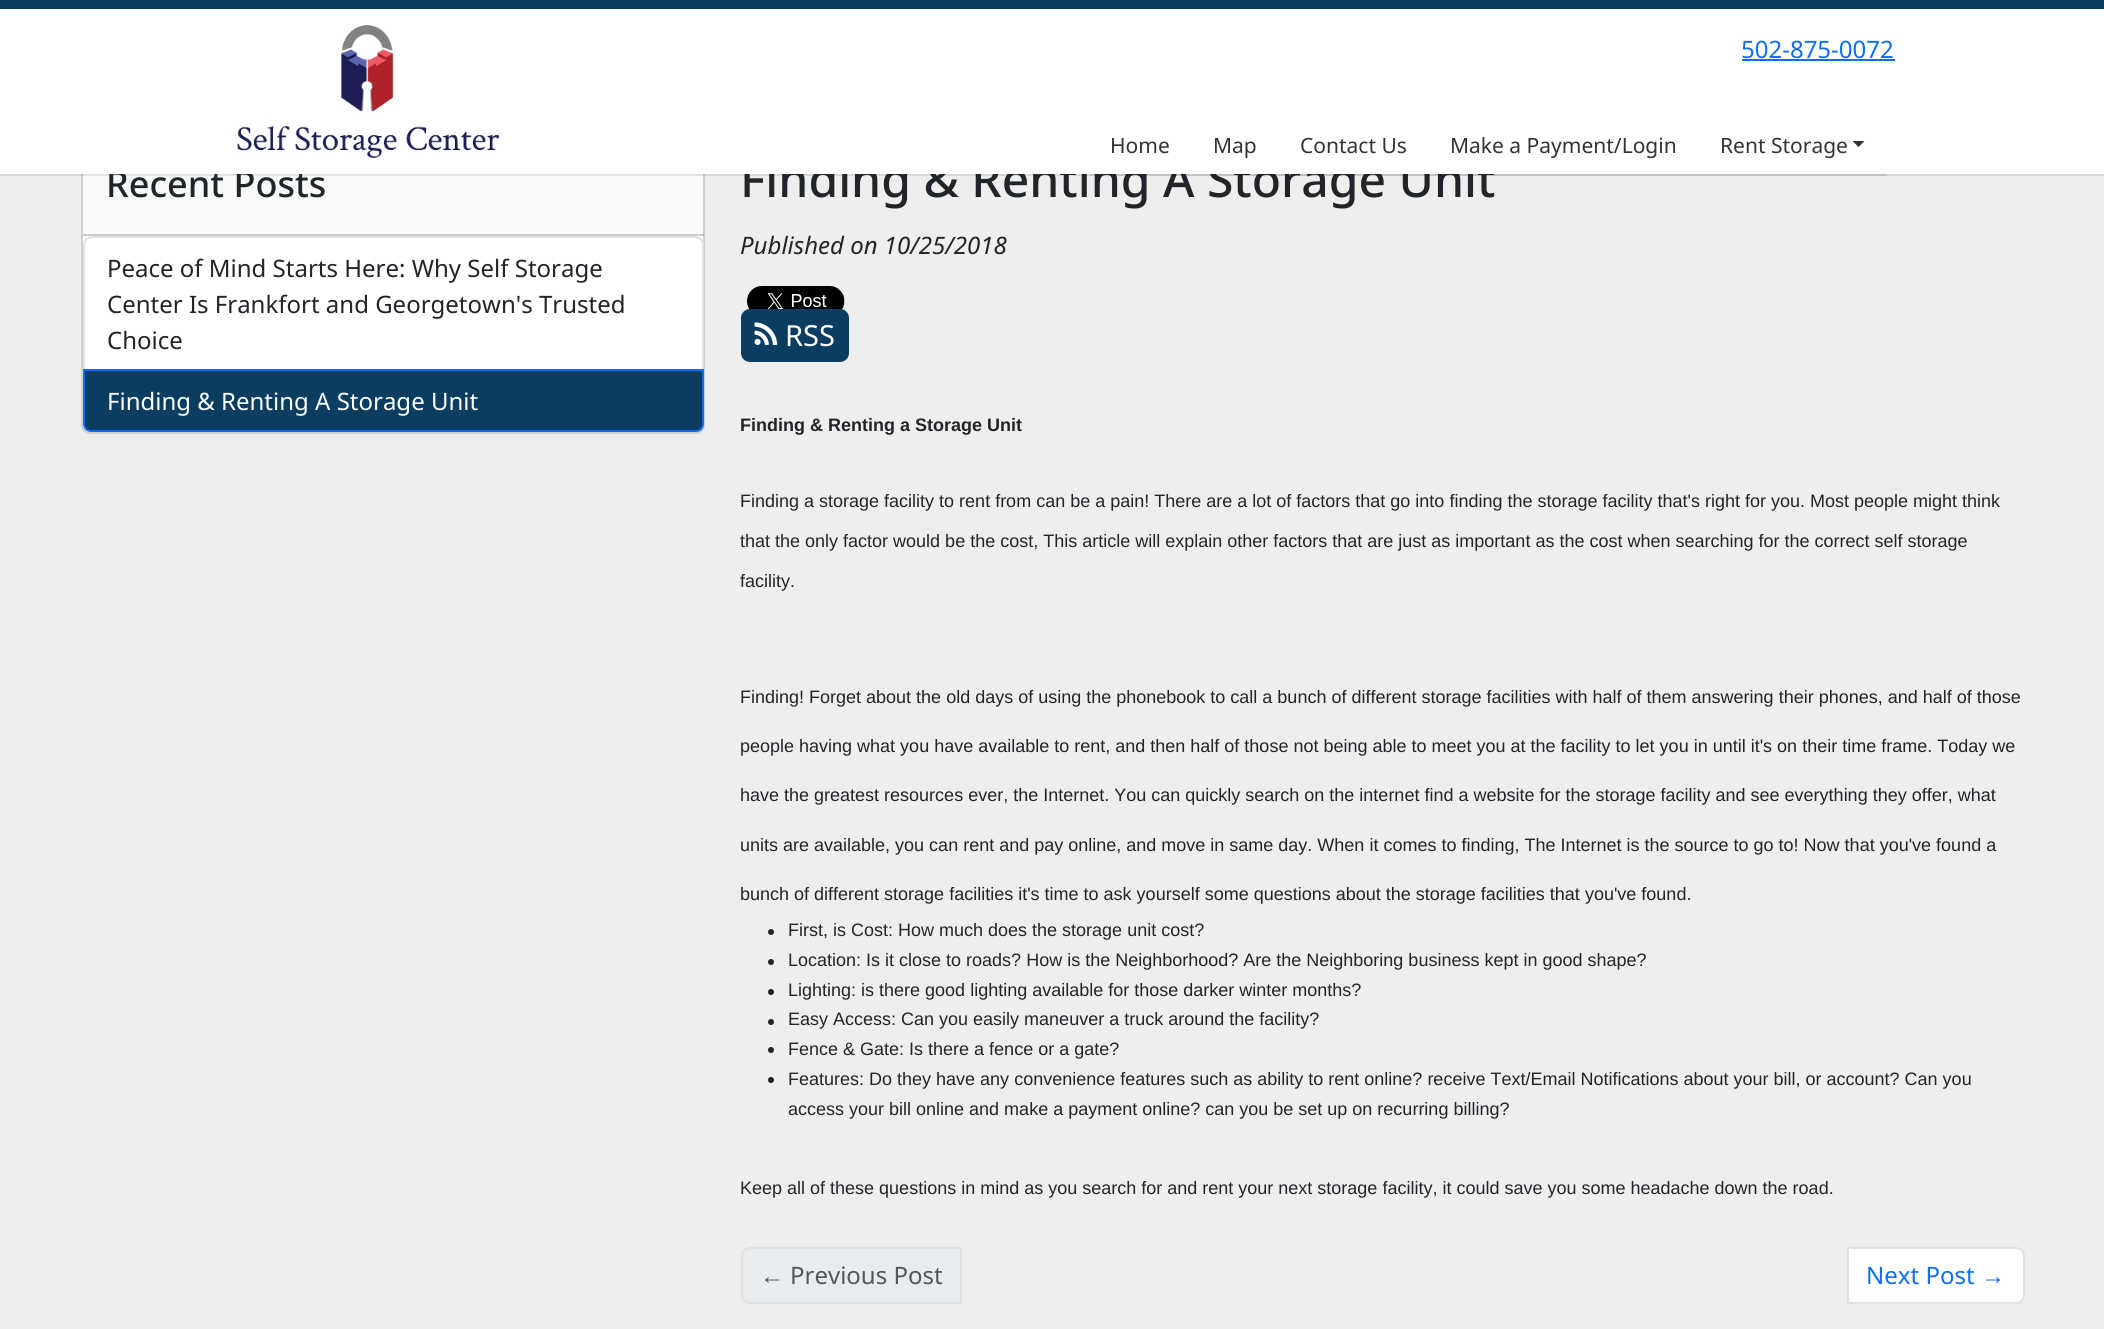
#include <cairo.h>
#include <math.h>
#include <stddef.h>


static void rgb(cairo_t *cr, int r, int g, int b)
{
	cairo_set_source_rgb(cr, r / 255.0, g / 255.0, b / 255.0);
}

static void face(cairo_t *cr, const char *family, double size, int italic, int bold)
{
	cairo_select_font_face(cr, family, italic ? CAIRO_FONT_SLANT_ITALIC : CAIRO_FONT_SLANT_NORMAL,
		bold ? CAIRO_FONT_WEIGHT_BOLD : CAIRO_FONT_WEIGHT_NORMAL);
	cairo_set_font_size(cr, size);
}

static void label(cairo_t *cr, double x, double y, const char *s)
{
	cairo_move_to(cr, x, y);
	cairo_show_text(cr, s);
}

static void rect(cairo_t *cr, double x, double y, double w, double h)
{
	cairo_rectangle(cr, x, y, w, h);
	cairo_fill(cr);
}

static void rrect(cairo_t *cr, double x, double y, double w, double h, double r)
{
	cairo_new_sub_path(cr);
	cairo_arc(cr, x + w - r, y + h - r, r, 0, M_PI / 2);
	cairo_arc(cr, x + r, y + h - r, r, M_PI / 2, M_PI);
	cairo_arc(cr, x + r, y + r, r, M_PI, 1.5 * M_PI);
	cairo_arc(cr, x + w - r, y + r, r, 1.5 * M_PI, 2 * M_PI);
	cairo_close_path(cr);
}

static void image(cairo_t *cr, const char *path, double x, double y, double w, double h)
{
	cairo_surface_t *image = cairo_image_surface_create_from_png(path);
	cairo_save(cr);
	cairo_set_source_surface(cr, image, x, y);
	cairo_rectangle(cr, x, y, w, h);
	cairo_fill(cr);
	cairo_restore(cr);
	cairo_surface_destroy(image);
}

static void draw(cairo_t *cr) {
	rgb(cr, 238, 238, 238);
	cairo_paint(cr);
	rgb(cr, 255, 255, 255);
	rrect(cr, 81, 143, 624, 291, 9);
	cairo_fill(cr);
	rrect(cr, 82, 144, 622, 289, 8);
	cairo_set_source_rgba(cr, 0, 0, 0, 0.18);
	cairo_stroke(cr);
	cairo_set_source_rgba(cr, 0.129, 0.145, 0.161, 0.03);
	rect(cr, 83, 174, 621, 62);
	cairo_set_source_rgba(cr, 0, 0, 0, 0.1);
	cairo_new_path(cr);
	cairo_move_to(cr, 0, 174);
	cairo_line_to(cr, 0, 176);
	cairo_line_to(cr, 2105, 176);
	cairo_line_to(cr, 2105, 2);
	cairo_line_to(cr, 2104, 2);
	cairo_line_to(cr, 2104, 174);
	cairo_close_path(cr);
	cairo_fill(cr);
	face(cr, "Noto Sans Medium", 36, 0, 0);
	rgb(cr, 33, 37, 41);
	label(cr, 106, 197, "Recent Posts");
	face(cr, "Noto Sans Medium", 48, 0, 0);
	label(cr, 740, 197, "Finding & Renting A Storage Unit");
	rgb(cr, 255, 255, 255);
	rect(cr, 0, 9, 2104, 165);
	rgb(cr, 10, 61, 96);
	rect(cr, 0, 0, 2104, 9);
	image(cr, "image0.png", 237, 24, 263, 135);
	face(cr, "Noto Sans", 24, 0, 0);
	rgb(cr, 13, 110, 253);
	label(cr, 1741, 58, "502-875-0072");
	rect(cr, 1742, 59, 153, 2);
	cairo_set_source_rgba(cr, 0, 0, 0, 0.1);
	rect(cr, 1089, 174, 798, 2);
	face(cr, "Noto Sans", 21, 0, 0);
	rgb(cr, 51, 51, 51);
	label(cr, 1110, 153, "Home");
	label(cr, 1213, 153, "Map");
	label(cr, 1300, 153, "Contact Us");
	label(cr, 1450, 153, "Make a Payment/Login");
	label(cr, 1720, 153, "Rent Storage");
	cairo_new_path(cr);
	cairo_move_to(cr, 1852.5, 141);
	cairo_line_to(cr, 1864.5, 141);
	cairo_line_to(cr, 1858.5, 147);
	cairo_close_path(cr);
	cairo_fill(cr);
	cairo_set_source_rgba(cr, 0, 0, 0, 0.18);
	rect(cr, 83, 234, 621, 2);
	rgb(cr, 255, 255, 255);
	cairo_new_path(cr);
	cairo_move_to(cr, 92, 237);
	cairo_line_to(cr, 695, 237);
	cairo_curve_to(cr, 699.5, 237, 703, 240.5, 703, 245);
	cairo_line_to(cr, 703, 370);
	cairo_line_to(cr, 84, 370);
	cairo_line_to(cr, 84, 245);
	cairo_curve_to(cr, 84, 240.5, 87.5, 237, 92, 237);
	cairo_close_path(cr);
	cairo_fill_preserve(cr);
	rgb(cr, 222, 226, 230);
	cairo_stroke(cr);
	face(cr, "Noto Sans", 24, 0, 0);
	rgb(cr, 33, 37, 41);
	label(cr, 107, 277, "Peace of Mind Starts Here: Why Self Storage");
	label(cr, 107, 313, "Center Is Frankfort and Georgetown's Trusted");
	label(cr, 107, 349, "Choice");
	rgb(cr, 10, 61, 96);
	cairo_new_path(cr);
	cairo_move_to(cr, 84, 370);
	cairo_line_to(cr, 703, 370);
	cairo_line_to(cr, 703, 424);
	cairo_curve_to(cr, 703, 428, 700, 431, 696, 431);
	cairo_line_to(cr, 91, 431);
	cairo_curve_to(cr, 87, 431, 84, 428, 84, 424);
	cairo_close_path(cr);
	cairo_fill_preserve(cr);
	rgb(cr, 13, 110, 253);
	cairo_stroke(cr);
	rgb(cr, 255, 255, 255);
	label(cr, 107, 410, "Finding & Renting A Storage Unit");
	face(cr, "Noto Sans", 24, 1, 0);
	rgb(cr, 33, 37, 41);
	label(cr, 740, 254, "Published on 10/25/2018");
	image(cr, "image1.png", 747, 286, 98, 24);
	rgb(cr, 10, 61, 96);
	rrect(cr, 741, 309, 108, 53, 9);
	cairo_fill(cr);
	image(cr, "image2.png", 754, 322, 24, 23);
	face(cr, "Noto Sans", 29, 0, 0);
	rgb(cr, 255, 255, 255);
	label(cr, 785, 346, "RSS");
	face(cr, "Liberation Sans", 18, 0, 1);
	rgb(cr, 33, 37, 41);
	label(cr, 740, 431, "Finding & Renting a Storage Unit");
	face(cr, "Liberation Sans", 18, 0, 0);
	label(cr, 740, 507, "Finding a storage facility to rent from can be a pain! There are a lot of factors that go into finding the storage facility that's right for you. Most people might think");
	label(cr, 740, 547, "that the only factor would be the cost, This article will explain other factors that are just as important as the cost when searching for the correct self storage");
	label(cr, 740, 587, "facility.");
	label(cr, 740, 703, "Finding! Forget about the old days of using the phonebook to call a bunch of different storage facilities with half of them answering their phones, and half of those");
	label(cr, 740, 752, "people having what you have available to rent, and then half of those not being able to meet you at the facility to let you in until it's on their time frame. Today we");
	label(cr, 740, 801, "have the greatest resources ever, the Internet. You can quickly search on the internet find a website for the storage facility and see everything they offer, what");
	label(cr, 740, 851, "units are available, you can rent and pay online, and move in same day. When it comes to finding, The Internet is the source to go to! Now that you've found a");
	label(cr, 740, 900, "bunch of different storage facilities it's time to ask yourself some questions about the storage facilities that you've found.");
	cairo_new_path(cr);
	cairo_arc(cr, 771, 932, 3, 0, 2 * M_PI);
	cairo_fill(cr);
	label(cr, 788, 936, "First, is Cost: How much does the storage unit cost?");
	cairo_new_path(cr);
	cairo_arc(cr, 771, 962, 3, 0, 2 * M_PI);
	cairo_fill(cr);
	label(cr, 788, 966, "Location: Is it close to roads? How is the Neighborhood? Are the Neighboring business kept in good shape?");
	cairo_new_path(cr);
	cairo_arc(cr, 771, 992, 3, 0, 2 * M_PI);
	cairo_fill(cr);
	label(cr, 788, 996, "Lighting: is there good lighting available for those darker winter months?");
	cairo_new_path(cr);
	cairo_arc(cr, 771, 1022, 3, 0, 2 * M_PI);
	cairo_fill(cr);
	label(cr, 788, 1025, "Easy Access: Can you easily maneuver a truck around the facility?");
	cairo_new_path(cr);
	cairo_arc(cr, 771, 1050, 3, 0, 2 * M_PI);
	cairo_fill(cr);
	label(cr, 788, 1055, "Fence & Gate: Is there a fence or a gate?");
	cairo_new_path(cr);
	cairo_arc(cr, 771, 1080, 3, 0, 2 * M_PI);
	cairo_fill(cr);
	label(cr, 788, 1085, "Features: Do they have any convenience features such as ability to rent online? receive Text/Email Notifications about your bill, or account? Can you");
	label(cr, 788, 1115, "access your bill online and make a payment online? can you be set up on recurring billing?");
	label(cr, 740, 1194, "Keep all of these questions in mind as you search for and rent your next storage facility, it could save you some headache down the road.");
	rgb(cr, 233, 236, 239);
	cairo_new_path(cr);
	cairo_move_to(cr, 750, 1248);
	cairo_line_to(cr, 961, 1248);
	cairo_line_to(cr, 961, 1303);
	cairo_line_to(cr, 750, 1303);
	cairo_curve_to(cr, 745.5, 1303, 742, 1299.5, 742, 1295);
	cairo_line_to(cr, 742, 1256);
	cairo_curve_to(cr, 742, 1251.5, 745.5, 1248, 750, 1248);
	cairo_close_path(cr);
	cairo_fill_preserve(cr);
	rgb(cr, 222, 226, 230);
	cairo_stroke(cr);
	face(cr, "Liberation Sans", 24, 0, 0);
	rgb(cr, 83, 87, 91);
	label(cr, 760, 1284, "←");
	face(cr, "Noto Sans", 24, 0, 0);
	label(cr, 790, 1284, "Previous Post");
	rgb(cr, 255, 255, 255);
	cairo_new_path(cr);
	cairo_move_to(cr, 1848, 1248);
	cairo_line_to(cr, 2016, 1248);
	cairo_curve_to(cr, 2020.5, 1248, 2024, 1251.5, 2024, 1256);
	cairo_line_to(cr, 2024, 1295);
	cairo_curve_to(cr, 2024, 1299.5, 2020.5, 1303, 2016, 1303);
	cairo_line_to(cr, 1848, 1303);
	cairo_close_path(cr);
	cairo_fill_preserve(cr);
	rgb(cr, 222, 226, 230);
	cairo_stroke(cr);
	rgb(cr, 13, 110, 253);
	label(cr, 1866, 1284, "Next Post");
	face(cr, "Liberation Sans", 24, 0, 0);
	label(cr, 1981, 1284, "→");
}

int main(void) {
	cairo_surface_t *surface = cairo_image_surface_create(CAIRO_FORMAT_RGB24, 2104, 1329);
	cairo_t *cr = cairo_create(surface);
	cairo_font_options_t *options = cairo_font_options_create();
	cairo_font_options_set_hint_metrics(options, CAIRO_HINT_METRICS_OFF);
	cairo_font_options_set_hint_style(options, CAIRO_HINT_STYLE_NONE);
	cairo_set_font_options(cr, options);
	cairo_set_miter_limit(cr, 4);
	draw(cr);
	cairo_surface_write_to_png(surface, "render.png");
	cairo_font_options_destroy(options);
	cairo_destroy(cr);
	cairo_surface_destroy(surface);
	return 0;
}
